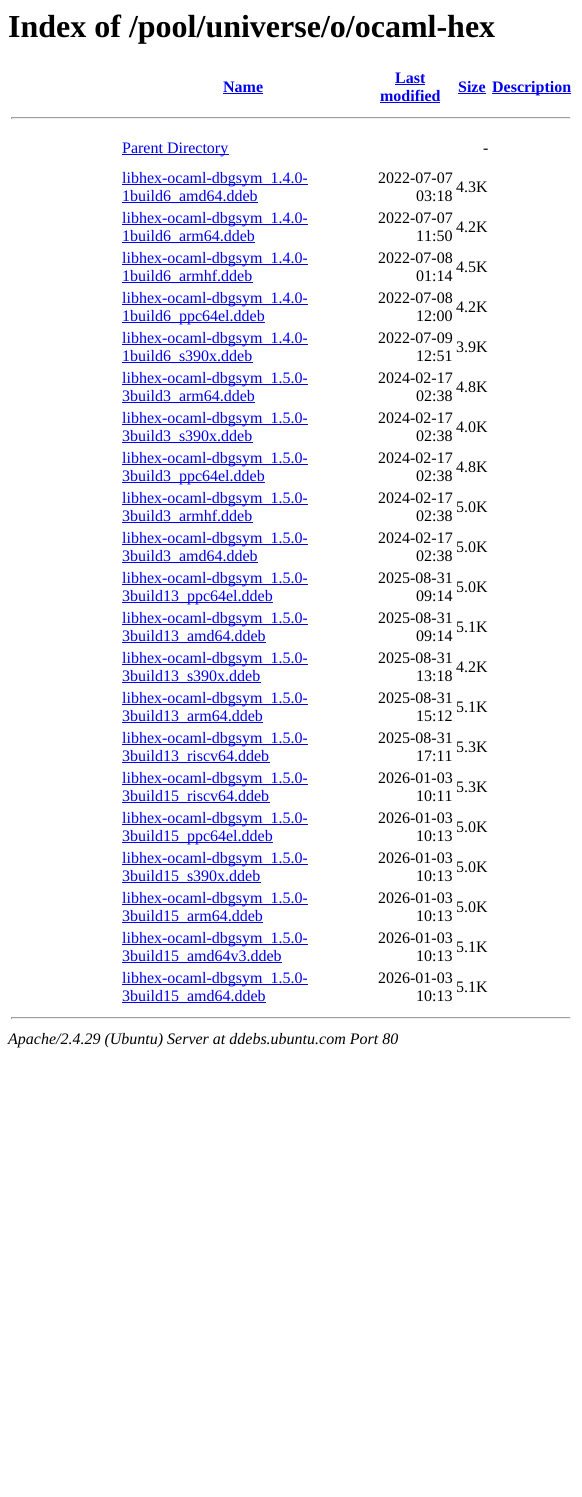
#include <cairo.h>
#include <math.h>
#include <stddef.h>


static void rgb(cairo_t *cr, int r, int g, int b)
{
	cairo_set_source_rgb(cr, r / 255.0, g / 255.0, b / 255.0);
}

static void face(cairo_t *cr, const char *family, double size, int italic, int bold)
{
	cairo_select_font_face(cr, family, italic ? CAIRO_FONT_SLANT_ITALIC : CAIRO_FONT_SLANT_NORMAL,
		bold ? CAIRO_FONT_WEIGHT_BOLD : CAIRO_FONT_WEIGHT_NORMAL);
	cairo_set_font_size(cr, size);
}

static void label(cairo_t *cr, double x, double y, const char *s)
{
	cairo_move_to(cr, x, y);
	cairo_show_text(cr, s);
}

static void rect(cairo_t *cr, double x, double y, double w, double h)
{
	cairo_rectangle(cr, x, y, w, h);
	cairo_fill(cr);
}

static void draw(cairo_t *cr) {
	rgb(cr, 255, 255, 255);
	cairo_paint(cr);
	face(cr, "Liberation Serif", 32, 0, 1);
	rgb(cr, 0, 0, 0);
	label(cr, 8, 37, "Index of /pool/universe/o/ocaml-hex");
	face(cr, "Liberation Serif", 16, 0, 1);
	rgb(cr, 0, 0, 238);
	label(cr, 223, 92, "Name");
	rect(cr, 223, 93, 40, 1);
	label(cr, 395, 83, "Last");
	rect(cr, 395, 84, 30, 1);
	label(cr, 380, 101, "modified");
	rect(cr, 380, 102, 60, 1);
	label(cr, 458, 92, "Size");
	rect(cr, 458, 93, 28, 1);
	rect(cr, 492, 93, 79, 1);
	label(cr, 492, 92, "Description");
	rgb(cr, 159, 159, 159);
	rect(cr, 11, 117, 560, 1);
	rgb(cr, 238, 238, 238);
	rect(cr, 570, 117, 1, 2);
	rect(cr, 11, 118, 560, 1);
	rgb(cr, 159, 159, 159);
	rect(cr, 11, 117, 1, 2);
	rgb(cr, 0, 0, 238);
	rect(cr, 122, 154, 107, 1);
	face(cr, "Liberation Serif", 16, 0, 0);
	label(cr, 122, 153, "Parent Directory");
	rgb(cr, 0, 0, 0);
	label(cr, 483, 153, "-");
	rgb(cr, 0, 0, 238);
	rect(cr, 122, 184, 186, 1);
	label(cr, 122, 183, "libhex-ocaml-dbgsym_1.4.0-");
	rect(cr, 122, 202, 136, 1);
	label(cr, 122, 201, "1build6_amd64.ddeb");
	rgb(cr, 0, 0, 0);
	label(cr, 378, 183, "2022-07-07");
	label(cr, 416, 201, "03:18");
	label(cr, 456, 192, "4.3K");
	rgb(cr, 0, 0, 238);
	rect(cr, 122, 224, 186, 1);
	label(cr, 122, 223, "libhex-ocaml-dbgsym_1.4.0-");
	rect(cr, 122, 242, 133, 1);
	label(cr, 122, 241, "1build6_arm64.ddeb");
	rgb(cr, 0, 0, 0);
	label(cr, 378, 223, "2022-07-07");
	label(cr, 416, 241, "11:50");
	label(cr, 456, 232, "4.2K");
	rgb(cr, 0, 0, 238);
	rect(cr, 122, 264, 186, 1);
	label(cr, 122, 263, "libhex-ocaml-dbgsym_1.4.0-");
	rect(cr, 122, 282, 131, 1);
	label(cr, 122, 281, "1build6_armhf.ddeb");
	rgb(cr, 0, 0, 0);
	label(cr, 378, 263, "2022-07-08");
	label(cr, 416, 281, "01:14");
	label(cr, 456, 272, "4.5K");
	rgb(cr, 0, 0, 238);
	rect(cr, 122, 304, 186, 1);
	label(cr, 122, 303, "libhex-ocaml-dbgsym_1.4.0-");
	rect(cr, 122, 322, 143, 1);
	label(cr, 122, 321, "1build6_ppc64el.ddeb");
	rgb(cr, 0, 0, 0);
	label(cr, 378, 303, "2022-07-08");
	label(cr, 416, 321, "12:00");
	label(cr, 456, 312, "4.2K");
	rgb(cr, 0, 0, 238);
	rect(cr, 122, 344, 186, 1);
	label(cr, 122, 343, "libhex-ocaml-dbgsym_1.4.0-");
	rect(cr, 122, 362, 131, 1);
	label(cr, 122, 361, "1build6_s390x.ddeb");
	rgb(cr, 0, 0, 0);
	label(cr, 378, 343, "2022-07-09");
	label(cr, 416, 361, "12:51");
	label(cr, 456, 352, "3.9K");
	rgb(cr, 0, 0, 238);
	rect(cr, 122, 384, 186, 1);
	label(cr, 122, 383, "libhex-ocaml-dbgsym_1.5.0-");
	rect(cr, 122, 402, 133, 1);
	label(cr, 122, 401, "3build3_arm64.ddeb");
	rgb(cr, 0, 0, 0);
	label(cr, 378, 383, "2024-02-17");
	label(cr, 416, 401, "02:38");
	label(cr, 456, 392, "4.8K");
	rgb(cr, 0, 0, 238);
	rect(cr, 122, 424, 186, 1);
	label(cr, 122, 423, "libhex-ocaml-dbgsym_1.5.0-");
	rect(cr, 122, 442, 131, 1);
	label(cr, 122, 441, "3build3_s390x.ddeb");
	rgb(cr, 0, 0, 0);
	label(cr, 378, 423, "2024-02-17");
	label(cr, 416, 441, "02:38");
	label(cr, 456, 432, "4.0K");
	rgb(cr, 0, 0, 238);
	rect(cr, 122, 464, 186, 1);
	label(cr, 122, 463, "libhex-ocaml-dbgsym_1.5.0-");
	rect(cr, 122, 482, 143, 1);
	label(cr, 122, 481, "3build3_ppc64el.ddeb");
	rgb(cr, 0, 0, 0);
	label(cr, 378, 463, "2024-02-17");
	label(cr, 416, 481, "02:38");
	label(cr, 456, 472, "4.8K");
	rgb(cr, 0, 0, 238);
	rect(cr, 122, 504, 186, 1);
	label(cr, 122, 503, "libhex-ocaml-dbgsym_1.5.0-");
	rect(cr, 122, 522, 131, 1);
	label(cr, 122, 521, "3build3_armhf.ddeb");
	rgb(cr, 0, 0, 0);
	label(cr, 378, 503, "2024-02-17");
	label(cr, 416, 521, "02:38");
	label(cr, 456, 512, "5.0K");
	rgb(cr, 0, 0, 238);
	rect(cr, 122, 544, 186, 1);
	label(cr, 122, 543, "libhex-ocaml-dbgsym_1.5.0-");
	rect(cr, 122, 562, 136, 1);
	label(cr, 122, 561, "3build3_amd64.ddeb");
	rgb(cr, 0, 0, 0);
	label(cr, 378, 543, "2024-02-17");
	label(cr, 416, 561, "02:38");
	label(cr, 456, 552, "5.0K");
	rgb(cr, 0, 0, 238);
	rect(cr, 122, 584, 186, 1);
	label(cr, 122, 583, "libhex-ocaml-dbgsym_1.5.0-");
	rect(cr, 122, 602, 151, 1);
	label(cr, 122, 601, "3build13_ppc64el.ddeb");
	rgb(cr, 0, 0, 0);
	label(cr, 378, 583, "2025-08-31");
	label(cr, 416, 601, "09:14");
	label(cr, 456, 592, "5.0K");
	rgb(cr, 0, 0, 238);
	rect(cr, 122, 624, 186, 1);
	label(cr, 122, 623, "libhex-ocaml-dbgsym_1.5.0-");
	rect(cr, 122, 642, 144, 1);
	label(cr, 122, 641, "3build13_amd64.ddeb");
	rgb(cr, 0, 0, 0);
	label(cr, 378, 623, "2025-08-31");
	label(cr, 416, 641, "09:14");
	label(cr, 456, 632, "5.1K");
	rgb(cr, 0, 0, 238);
	rect(cr, 122, 664, 186, 1);
	label(cr, 122, 663, "libhex-ocaml-dbgsym_1.5.0-");
	rect(cr, 122, 682, 139, 1);
	label(cr, 122, 681, "3build13_s390x.ddeb");
	rgb(cr, 0, 0, 0);
	label(cr, 378, 663, "2025-08-31");
	label(cr, 416, 681, "13:18");
	label(cr, 456, 672, "4.2K");
	rgb(cr, 0, 0, 238);
	rect(cr, 122, 704, 186, 1);
	label(cr, 122, 703, "libhex-ocaml-dbgsym_1.5.0-");
	rect(cr, 122, 722, 141, 1);
	label(cr, 122, 721, "3build13_arm64.ddeb");
	rgb(cr, 0, 0, 0);
	label(cr, 378, 703, "2025-08-31");
	label(cr, 416, 721, "15:12");
	label(cr, 456, 712, "5.1K");
	rgb(cr, 0, 0, 238);
	rect(cr, 122, 744, 186, 1);
	label(cr, 122, 743, "libhex-ocaml-dbgsym_1.5.0-");
	rect(cr, 122, 762, 148, 1);
	label(cr, 122, 761, "3build13_riscv64.ddeb");
	rgb(cr, 0, 0, 0);
	label(cr, 378, 743, "2025-08-31");
	label(cr, 416, 761, "17:11");
	label(cr, 456, 752, "5.3K");
	rgb(cr, 0, 0, 238);
	rect(cr, 122, 784, 186, 1);
	label(cr, 122, 783, "libhex-ocaml-dbgsym_1.5.0-");
	rect(cr, 122, 802, 148, 1);
	label(cr, 122, 801, "3build15_riscv64.ddeb");
	rgb(cr, 0, 0, 0);
	label(cr, 378, 783, "2026-01-03");
	label(cr, 416, 801, "10:11");
	label(cr, 456, 792, "5.3K");
	rgb(cr, 0, 0, 238);
	rect(cr, 122, 824, 186, 1);
	label(cr, 122, 823, "libhex-ocaml-dbgsym_1.5.0-");
	rect(cr, 122, 842, 151, 1);
	label(cr, 122, 841, "3build15_ppc64el.ddeb");
	rgb(cr, 0, 0, 0);
	label(cr, 378, 823, "2026-01-03");
	label(cr, 416, 841, "10:13");
	label(cr, 456, 832, "5.0K");
	rgb(cr, 0, 0, 238);
	rect(cr, 122, 864, 186, 1);
	label(cr, 122, 863, "libhex-ocaml-dbgsym_1.5.0-");
	rect(cr, 122, 882, 139, 1);
	label(cr, 122, 881, "3build15_s390x.ddeb");
	rgb(cr, 0, 0, 0);
	label(cr, 378, 863, "2026-01-03");
	label(cr, 416, 881, "10:13");
	label(cr, 456, 872, "5.0K");
	rgb(cr, 0, 0, 238);
	rect(cr, 122, 904, 186, 1);
	label(cr, 122, 903, "libhex-ocaml-dbgsym_1.5.0-");
	rect(cr, 122, 922, 141, 1);
	label(cr, 122, 921, "3build15_arm64.ddeb");
	rgb(cr, 0, 0, 0);
	label(cr, 378, 903, "2026-01-03");
	label(cr, 416, 921, "10:13");
	label(cr, 456, 912, "5.0K");
	rgb(cr, 0, 0, 238);
	rect(cr, 122, 944, 186, 1);
	label(cr, 122, 943, "libhex-ocaml-dbgsym_1.5.0-");
	rect(cr, 122, 962, 160, 1);
	label(cr, 122, 961, "3build15_amd64v3.ddeb");
	rgb(cr, 0, 0, 0);
	label(cr, 378, 943, "2026-01-03");
	label(cr, 416, 961, "10:13");
	label(cr, 456, 952, "5.1K");
	rgb(cr, 0, 0, 238);
	rect(cr, 122, 984, 186, 1);
	label(cr, 122, 983, "libhex-ocaml-dbgsym_1.5.0-");
	rect(cr, 122, 1002, 144, 1);
	label(cr, 122, 1001, "3build15_amd64.ddeb");
	rgb(cr, 0, 0, 0);
	label(cr, 378, 983, "2026-01-03");
	label(cr, 416, 1001, "10:13");
	label(cr, 456, 992, "5.1K");
	rgb(cr, 159, 159, 159);
	rect(cr, 11, 1017, 560, 1);
	rgb(cr, 238, 238, 238);
	rect(cr, 570, 1017, 1, 2);
	rect(cr, 11, 1018, 560, 1);
	rgb(cr, 159, 159, 159);
	rect(cr, 11, 1017, 1, 2);
	face(cr, "Liberation Serif", 16, 1, 0);
	rgb(cr, 0, 0, 0);
	label(cr, 8, 1044, "Apache/2.4.29 (Ubuntu) Server at ddebs.ubuntu.com Port 80");
}

int main(void) {
	cairo_surface_t *surface = cairo_image_surface_create(CAIRO_FORMAT_RGB24, 582, 1497);
	cairo_t *cr = cairo_create(surface);
	cairo_font_options_t *options = cairo_font_options_create();
	cairo_font_options_set_hint_metrics(options, CAIRO_HINT_METRICS_OFF);
	cairo_font_options_set_hint_style(options, CAIRO_HINT_STYLE_NONE);
	cairo_set_font_options(cr, options);
	cairo_set_miter_limit(cr, 4);
	draw(cr);
	cairo_surface_write_to_png(surface, "render.png");
	cairo_font_options_destroy(options);
	cairo_destroy(cr);
	cairo_surface_destroy(surface);
	return 0;
}
